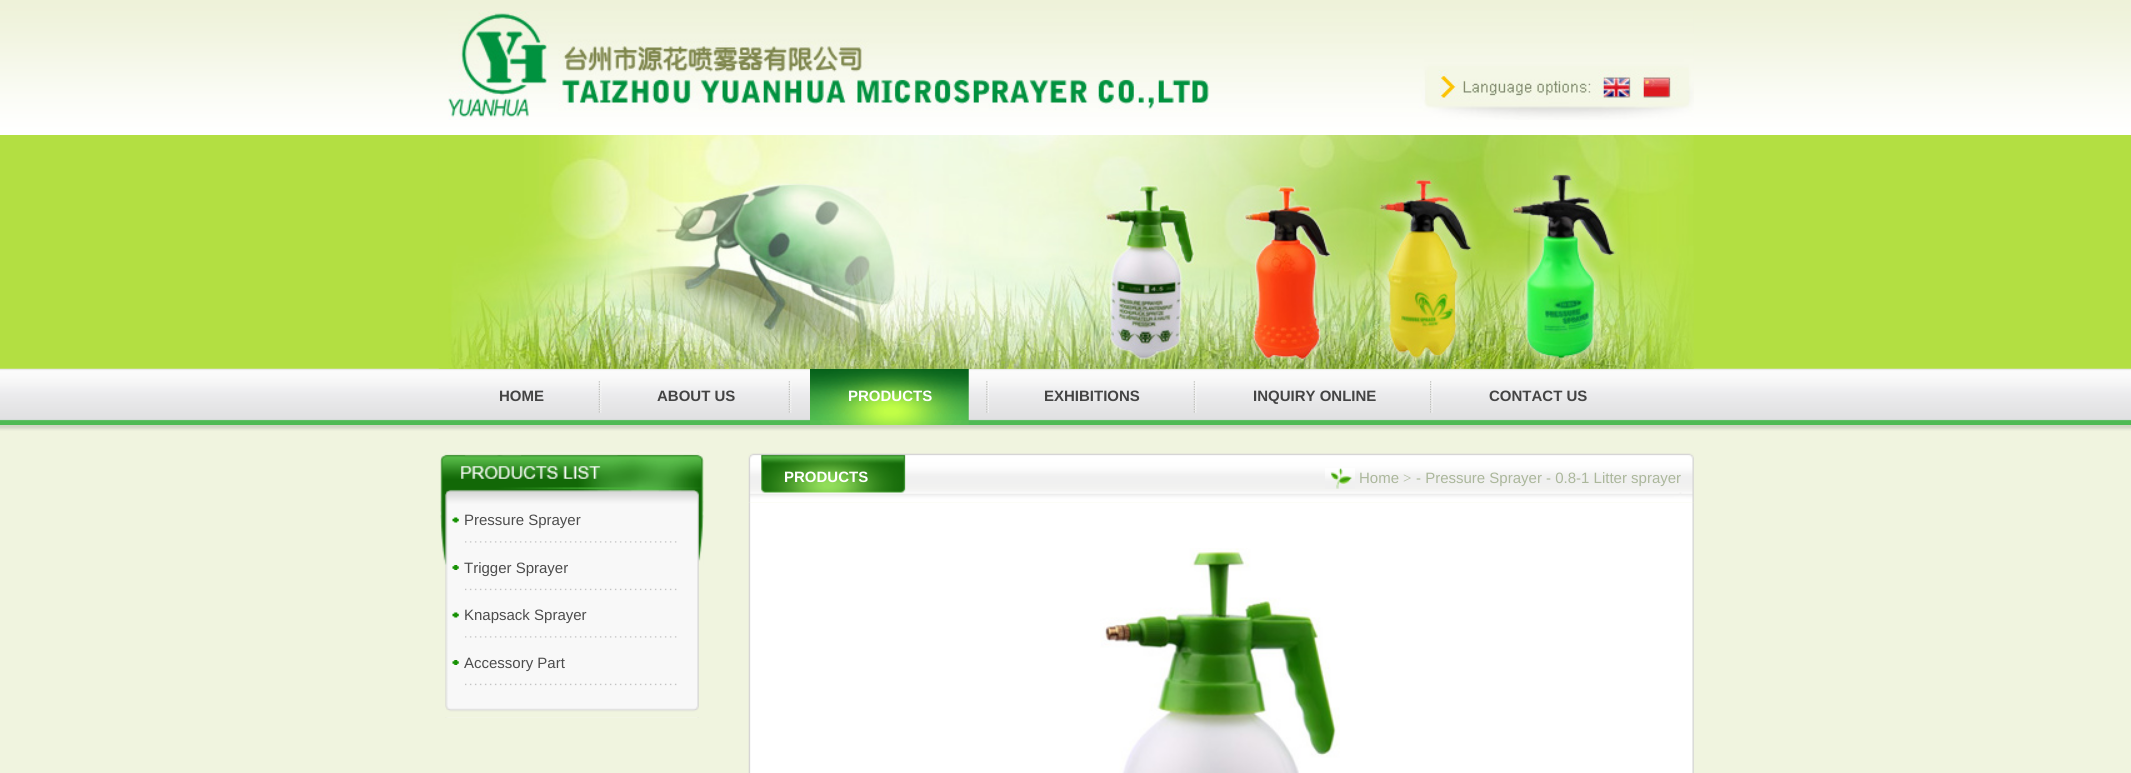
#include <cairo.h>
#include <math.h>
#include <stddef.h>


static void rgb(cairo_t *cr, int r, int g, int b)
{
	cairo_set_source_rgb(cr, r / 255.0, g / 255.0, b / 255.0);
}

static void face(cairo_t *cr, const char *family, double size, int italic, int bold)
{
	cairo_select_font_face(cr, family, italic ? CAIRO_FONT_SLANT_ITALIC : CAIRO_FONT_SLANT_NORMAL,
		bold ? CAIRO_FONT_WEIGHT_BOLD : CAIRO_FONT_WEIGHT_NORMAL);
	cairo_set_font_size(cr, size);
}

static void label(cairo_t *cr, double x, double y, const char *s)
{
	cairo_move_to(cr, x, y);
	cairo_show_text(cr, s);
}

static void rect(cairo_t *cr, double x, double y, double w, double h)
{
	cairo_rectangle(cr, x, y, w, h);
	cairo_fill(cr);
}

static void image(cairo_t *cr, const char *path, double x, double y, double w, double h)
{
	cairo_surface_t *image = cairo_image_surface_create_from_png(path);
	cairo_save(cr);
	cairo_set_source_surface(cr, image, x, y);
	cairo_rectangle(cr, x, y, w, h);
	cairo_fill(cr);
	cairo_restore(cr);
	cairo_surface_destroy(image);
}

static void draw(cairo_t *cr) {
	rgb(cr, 240, 244, 223);
	cairo_paint(cr);
	image(cr, "image0.png", 0, 0, 2131, 135);
	image(cr, "image1.png", 448, 10, 1246, 110);
	rgb(cr, 179, 223, 66);
	rect(cr, 0, 135, 2131, 234);
	image(cr, "image3.png", 0, 368, 2131, 57);
	image(cr, "image6.png", 810, 368, 159, 57);
	image(cr, "image2.png", 438, 135, 1256, 234);
	image(cr, "image4.png", 598, 381, 4, 32);
	face(cr, "Liberation Sans", 15, 0, 1);
	rgb(cr, 68, 68, 68);
	label(cr, 499, 401, "HOME");
	image(cr, "image4.png", 788, 381, 4, 32);
	label(cr, 657, 401, "ABOUT US");
	image(cr, "image5.png", 986, 381, 3, 32);
	rgb(cr, 255, 255, 255);
	label(cr, 848, 401, "PRODUCTS");
	image(cr, "image4.png", 1193, 381, 4, 32);
	rgb(cr, 68, 68, 68);
	label(cr, 1044, 401, "EXHIBITIONS");
	image(cr, "image7.png", 1430, 381, 3, 32);
	label(cr, 1253, 401, "INQUIRY ONLINE");
	label(cr, 1489, 401, "CONTACT US");
	image(cr, "image8.png", 0, 425, 2131, 6);
	image(cr, "image9.png", 748, 453, 946, 50);
	rgb(cr, 255, 255, 255);
	label(cr, 784, 482, "PRODUCTS");
	image(cr, "image10.png", 1325, 468, 30, 21);
	face(cr, "Liberation Sans", 15, 0, 0);
	rgb(cr, 171, 183, 155);
	label(cr, 1359, 483, "Home");
	face(cr, "Liberation Serif", 15, 0, 0);
	label(cr, 1403, 483, ">");
	face(cr, "Liberation Sans", 15, 0, 0);
	label(cr, 1416, 483, "- Pressure Sprayer - 0.8-1 Litter sprayer");
	image(cr, "image11.png", 748, 502, 946, 271);
	image(cr, "image12.png", 1100, 548, 240, 225);
	image(cr, "image13.png", 445, 452, 254, 266);
	image(cr, "image14.png", 440, 452, 264, 113);
	image(cr, "image15.png", 465, 541, 212, 2);
	image(cr, "image16.png", 452, 517, 7, 6);
	rgb(cr, 76, 76, 76);
	label(cr, 464, 525, "Pressure Sprayer");
	image(cr, "image17.png", 465, 588, 212, 3);
	image(cr, "image18.png", 452, 565, 7, 5);
	label(cr, 464, 573, "Trigger Sprayer");
	image(cr, "image15.png", 465, 636, 212, 2);
	image(cr, "image16.png", 452, 612, 7, 6);
	label(cr, 464, 620, "Knapsack Sprayer");
	image(cr, "image17.png", 465, 683, 212, 3);
	image(cr, "image18.png", 452, 660, 7, 5);
	label(cr, 464, 668, "Accessory Part");
	image(cr, "image19.png", 445, 706, 254, 12);
}

int main(void) {
	cairo_surface_t *surface = cairo_image_surface_create(CAIRO_FORMAT_RGB24, 2131, 773);
	cairo_t *cr = cairo_create(surface);
	cairo_font_options_t *options = cairo_font_options_create();
	cairo_font_options_set_hint_metrics(options, CAIRO_HINT_METRICS_OFF);
	cairo_font_options_set_hint_style(options, CAIRO_HINT_STYLE_NONE);
	cairo_set_font_options(cr, options);
	cairo_set_miter_limit(cr, 4);
	draw(cr);
	cairo_surface_write_to_png(surface, "render.png");
	cairo_font_options_destroy(options);
	cairo_destroy(cr);
	cairo_surface_destroy(surface);
	return 0;
}
